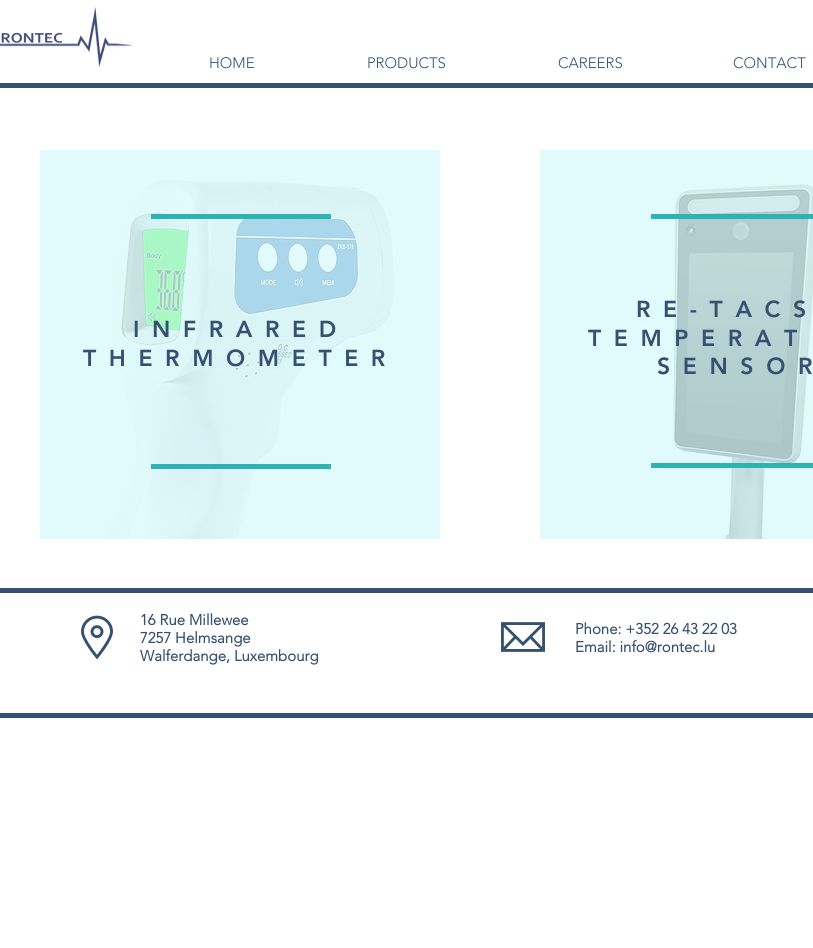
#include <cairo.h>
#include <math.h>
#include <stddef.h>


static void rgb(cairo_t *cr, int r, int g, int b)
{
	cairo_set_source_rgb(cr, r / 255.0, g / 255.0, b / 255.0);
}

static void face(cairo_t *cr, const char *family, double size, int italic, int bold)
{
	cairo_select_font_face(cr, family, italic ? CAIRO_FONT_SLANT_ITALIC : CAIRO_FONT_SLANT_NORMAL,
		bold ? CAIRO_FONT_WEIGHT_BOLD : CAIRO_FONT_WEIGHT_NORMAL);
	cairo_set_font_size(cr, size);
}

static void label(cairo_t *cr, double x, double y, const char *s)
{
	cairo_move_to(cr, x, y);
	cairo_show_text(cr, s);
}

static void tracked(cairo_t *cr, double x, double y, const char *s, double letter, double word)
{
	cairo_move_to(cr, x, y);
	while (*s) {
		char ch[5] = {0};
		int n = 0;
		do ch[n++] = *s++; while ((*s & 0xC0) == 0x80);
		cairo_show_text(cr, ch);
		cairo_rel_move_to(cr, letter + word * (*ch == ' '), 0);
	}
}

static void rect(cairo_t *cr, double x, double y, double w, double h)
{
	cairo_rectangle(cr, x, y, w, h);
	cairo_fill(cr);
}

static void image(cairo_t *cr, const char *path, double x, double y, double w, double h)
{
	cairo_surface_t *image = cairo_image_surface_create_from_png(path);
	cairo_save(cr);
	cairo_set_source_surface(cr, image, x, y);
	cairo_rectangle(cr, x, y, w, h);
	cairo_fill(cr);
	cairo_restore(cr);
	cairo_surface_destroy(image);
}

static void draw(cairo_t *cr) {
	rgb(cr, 255, 255, 255);
	cairo_paint(cr);
	image(cr, "image0.png", 0, 7, 133, 60);
	face(cr, "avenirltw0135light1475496 Light", 15, 0, 0);
	rgb(cr, 54, 81, 112);
	label(cr, 209, 68, "HOME");
	label(cr, 367, 68, "PRODUCTS");
	label(cr, 558, 68, "CAREERS");
	label(cr, 733, 68, "CONTACT");
	rect(cr, 0, 83, 813, 5);
	rgb(cr, 217, 250, 252);
	rect(cr, 40, 150, 400, 389);
	image(cr, "image1.png", 40, 150, 400, 389);
	rgb(cr, 45, 179, 179);
	rect(cr, 151, 214, 180, 5);
	face(cr, "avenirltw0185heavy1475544 Black", 23, 0, 0);
	rgb(cr, 54, 81, 112);
	tracked(cr, 133, 337, "INFRARED", 12.6, 0);
	tracked(cr, 83, 366, "THERMOMETER", 12.6, 0);
	rgb(cr, 45, 179, 179);
	rect(cr, 151, 464, 180, 5);
	rgb(cr, 217, 250, 252);
	rect(cr, 540, 150, 273, 389);
	image(cr, "image2.png", 540, 150, 273, 389);
	rgb(cr, 45, 179, 179);
	rect(cr, 651, 214, 162, 5);
	rgb(cr, 54, 81, 112);
	tracked(cr, 636, 317, "RE-TACS", 12.6, 0);
	tracked(cr, 588, 346, "TEMPERAT", 12.6, 0);
	tracked(cr, 657, 374, "SENSOR", 12.6, 0);
	rgb(cr, 45, 179, 179);
	rect(cr, 651, 463, 162, 5);
	rgb(cr, 54, 81, 112);
	rect(cr, 0, 588, 813, 5);
	rect(cr, 0, 713, 813, 5);
	image(cr, "image3.png", 81, 615, 32, 45);
	face(cr, "avenirltw0135light1475496", 15, 0, 1);
	label(cr, 140, 625, "16 Rue Millewee");
	label(cr, 140, 643, "7257 Helmsange");
	label(cr, 140, 661, "Walferdange, Luxembourg");
	image(cr, "image4.png", 501, 622, 44, 30);
	label(cr, 575, 634, "Phone: +352 26 43 22 03");
	label(cr, 575, 652, "Email: info@rontec.lu");
}

int main(void) {
	cairo_surface_t *surface = cairo_image_surface_create(CAIRO_FORMAT_RGB24, 813, 948);
	cairo_t *cr = cairo_create(surface);
	cairo_font_options_t *options = cairo_font_options_create();
	cairo_font_options_set_hint_metrics(options, CAIRO_HINT_METRICS_OFF);
	cairo_font_options_set_hint_style(options, CAIRO_HINT_STYLE_NONE);
	cairo_set_font_options(cr, options);
	cairo_set_miter_limit(cr, 4);
	draw(cr);
	cairo_surface_write_to_png(surface, "render.png");
	cairo_font_options_destroy(options);
	cairo_destroy(cr);
	cairo_surface_destroy(surface);
	return 0;
}
